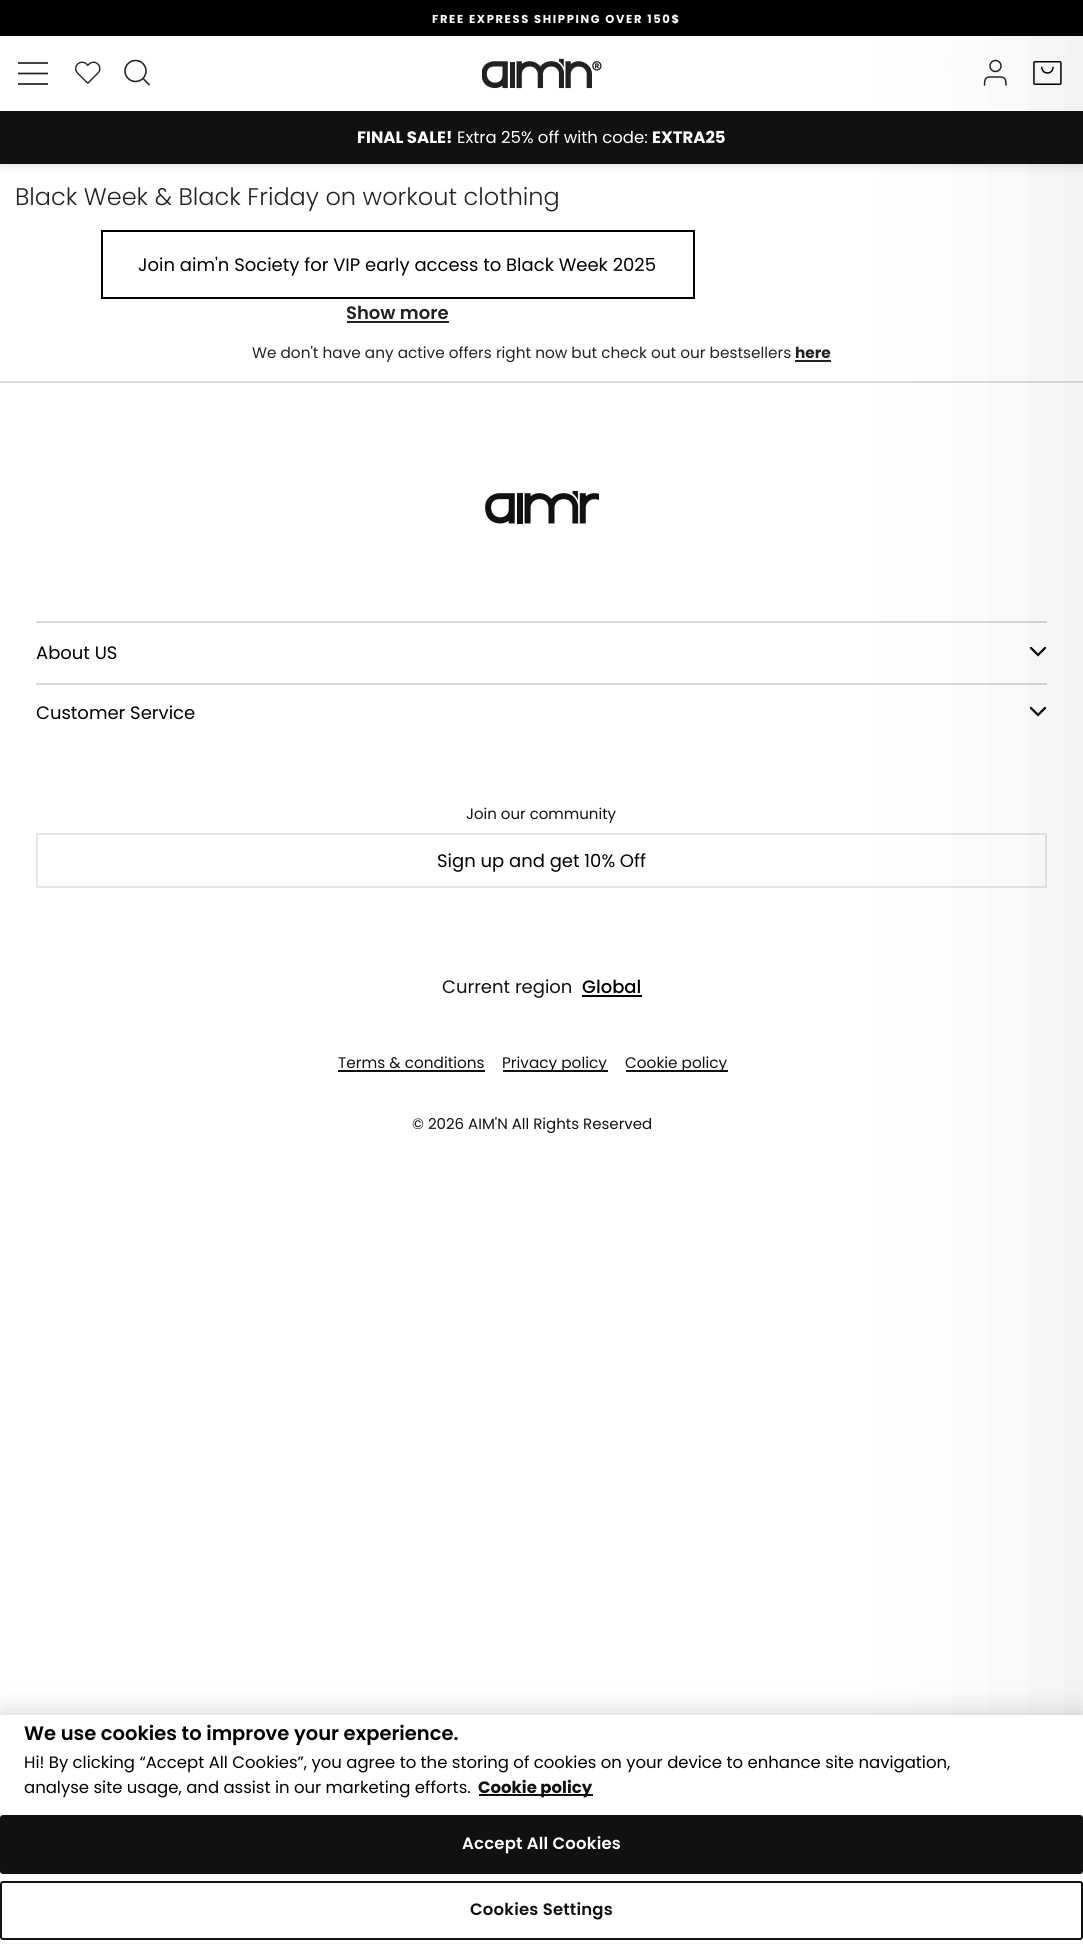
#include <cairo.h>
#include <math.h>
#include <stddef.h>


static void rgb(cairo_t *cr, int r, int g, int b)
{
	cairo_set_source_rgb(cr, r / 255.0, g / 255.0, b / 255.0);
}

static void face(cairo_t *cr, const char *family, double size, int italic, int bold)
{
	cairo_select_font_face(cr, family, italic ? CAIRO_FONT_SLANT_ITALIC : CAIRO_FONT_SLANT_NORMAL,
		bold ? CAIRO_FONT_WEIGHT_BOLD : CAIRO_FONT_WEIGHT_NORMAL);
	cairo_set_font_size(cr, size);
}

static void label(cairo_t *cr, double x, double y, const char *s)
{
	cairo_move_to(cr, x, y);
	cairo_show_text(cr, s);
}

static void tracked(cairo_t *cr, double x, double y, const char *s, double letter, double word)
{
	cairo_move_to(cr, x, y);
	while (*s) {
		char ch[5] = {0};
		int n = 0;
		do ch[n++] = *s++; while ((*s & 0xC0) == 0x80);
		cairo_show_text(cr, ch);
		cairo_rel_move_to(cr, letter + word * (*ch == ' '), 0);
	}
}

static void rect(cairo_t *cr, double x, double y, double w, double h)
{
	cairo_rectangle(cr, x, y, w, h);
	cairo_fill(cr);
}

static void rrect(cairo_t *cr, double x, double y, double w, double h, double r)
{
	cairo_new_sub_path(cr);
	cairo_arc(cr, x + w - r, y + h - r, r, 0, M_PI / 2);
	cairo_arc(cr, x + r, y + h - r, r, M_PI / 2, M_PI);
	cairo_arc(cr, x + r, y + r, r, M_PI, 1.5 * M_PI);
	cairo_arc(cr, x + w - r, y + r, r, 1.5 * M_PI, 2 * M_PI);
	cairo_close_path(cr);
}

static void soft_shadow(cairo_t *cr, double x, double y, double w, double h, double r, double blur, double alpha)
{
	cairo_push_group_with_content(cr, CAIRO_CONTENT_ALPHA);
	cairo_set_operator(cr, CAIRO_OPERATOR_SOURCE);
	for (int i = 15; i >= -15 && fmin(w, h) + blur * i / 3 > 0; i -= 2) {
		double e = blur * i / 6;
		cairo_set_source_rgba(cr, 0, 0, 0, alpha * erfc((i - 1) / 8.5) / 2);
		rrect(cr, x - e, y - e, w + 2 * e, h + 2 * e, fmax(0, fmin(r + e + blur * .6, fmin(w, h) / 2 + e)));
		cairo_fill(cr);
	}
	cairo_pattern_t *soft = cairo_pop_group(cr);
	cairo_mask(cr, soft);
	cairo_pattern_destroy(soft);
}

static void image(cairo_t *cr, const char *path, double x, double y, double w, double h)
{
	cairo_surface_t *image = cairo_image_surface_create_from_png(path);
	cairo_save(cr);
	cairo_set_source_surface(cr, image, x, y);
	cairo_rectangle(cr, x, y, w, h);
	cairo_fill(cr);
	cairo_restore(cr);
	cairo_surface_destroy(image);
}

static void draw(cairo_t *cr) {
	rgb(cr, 255, 255, 255);
	cairo_paint(cr);
	rgb(cr, 0, 0, 0);
	rect(cr, 0, 0, 1083, 36);
	face(cr, "Poppins", 11.5, 0, 1);
	rgb(cr, 255, 255, 255);
	tracked(cr, 432, 23, "FREE EXPRESS SHIPPING OVER 150$", 1.65, 0);
	rgb(cr, 0, 0, 0);
	soft_shadow(cr, 0, 39, 1083, 128, 0, 4.5, 0.1);
	rgb(cr, 255, 255, 255);
	rect(cr, 0, 36, 1083, 75);
	rgb(cr, 67, 67, 67);
	rect(cr, 18, 62, 30, 2);
	cairo_new_path(cr);
	cairo_move_to(cr, 18, 73.5);
	cairo_line_to(cr, 48, 73.5);
	rgb(cr, 34, 34, 34);
	cairo_set_line_width(cr, 1.7);
	cairo_stroke(cr);
	rgb(cr, 67, 67, 67);
	rect(cr, 18, 83, 30, 2);
	image(cr, "image0.png", 75, 61, 26, 23);
	cairo_arc(cr, 135.5, 71, 10.5, 0, 2 * M_PI);
	rgb(cr, 34, 34, 34);
	cairo_set_line_width(cr, 1.6);
	cairo_stroke(cr);
	cairo_new_path(cr);
	cairo_move_to(cr, 149.5, 85);
	cairo_line_to(cr, 143.5, 79);
	cairo_set_line_join(cr, CAIRO_LINE_JOIN_ROUND);
	cairo_stroke(cr);
	image(cr, "image1.png", 482, 58, 120, 31);
	cairo_arc(cr, 995.5, 66, 5.5, 0, 2 * M_PI);
	cairo_set_line_width(cr, 1.5);
	cairo_set_line_join(cr, CAIRO_LINE_JOIN_MITER);
	cairo_stroke(cr);
	cairo_new_path(cr);
	cairo_move_to(cr, 1006, 85);
	cairo_curve_to(cr, 1006, 76, 1003, 77, 995.5, 77);
	cairo_curve_to(cr, 987.5, 77, 984.5, 76, 984.5, 85);
	cairo_set_line_cap(cr, CAIRO_LINE_CAP_ROUND);
	cairo_set_line_join(cr, CAIRO_LINE_JOIN_ROUND);
	cairo_stroke(cr);
	image(cr, "image2.png", 1033, 61, 29, 24);
	rgb(cr, 17, 17, 17);
	rect(cr, 0, 111, 1083, 53);
	face(cr, "Poppins", 16.5, 0, 1);
	rgb(cr, 255, 255, 255);
	label(cr, 357, 143, "FINAL SALE!");
	face(cr, "Poppins", 16.5, 0, 0);
	label(cr, 457, 143, "Extra 25% off with code:");
	face(cr, "Poppins", 16.5, 0, 1);
	label(cr, 652, 143, "EXTRA25");
	rgb(cr, 34, 34, 34);
	rect(cr, 795, 360, 36, 2);
	rgb(cr, 221, 221, 221);
	rect(cr, 0, 381, 1083, 2);
	rgb(cr, 217, 217, 217);
	rect(cr, 36, 621, 1011, 2);
	cairo_new_path(cr);
	cairo_move_to(cr, 1045, 648);
	cairo_line_to(cr, 1038, 655);
	cairo_line_to(cr, 1031, 648);
	rgb(cr, 0, 0, 0);
	cairo_set_line_width(cr, 2.2);
	cairo_set_line_join(cr, CAIRO_LINE_JOIN_MITER);
	cairo_stroke(cr);
	rgb(cr, 217, 217, 217);
	rect(cr, 36, 683, 1011, 2);
	cairo_new_path(cr);
	cairo_move_to(cr, 1045, 708);
	cairo_line_to(cr, 1038, 715);
	cairo_line_to(cr, 1031, 708);
	rgb(cr, 0, 0, 0);
	cairo_stroke(cr);
	cairo_rectangle(cr, 37, 834, 1009, 53);
	rgb(cr, 230, 230, 230);
	cairo_set_line_width(cr, 2);
	cairo_set_line_cap(cr, CAIRO_LINE_CAP_BUTT);
	cairo_stroke(cr);
	rgb(cr, 0, 0, 0);
	soft_shadow(cr, 1083, 0, 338, 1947, 0, 112.5, 0.1);
	face(cr, "Poppins Light", 24, 0, 0);
	rgb(cr, 34, 34, 34);
	label(cr, 15, 205, "Black Week & Black Friday on workout clothing");
	cairo_rectangle(cr, 102, 231, 592, 67);
	rgb(cr, 0, 0, 0);
	cairo_stroke(cr);
	face(cr, "Poppins", 18, 0, 0);
	label(cr, 138, 271, "Join aim'n Society for VIP early access to Black Week 2025");
	face(cr, "Poppins SemiBold", 18, 0, 0);
	rgb(cr, 34, 34, 34);
	label(cr, 346, 319, "Show more");
	rect(cr, 347, 321, 102, 2);
	face(cr, "Poppins", 15.3, 0, 0);
	label(cr, 252, 358, "We don't have any active offers right now but check out our bestsellers");
	face(cr, "Poppins", 15.3, 0, 1);
	label(cr, 795, 358, "here");
	image(cr, "image3.png", 485, 491, 114, 33);
	face(cr, "Poppins", 18, 0, 0);
	rgb(cr, 0, 0, 0);
	label(cr, 36, 659, "About US");
	label(cr, 36, 719, "Customer Service");
	face(cr, "Poppins", 15, 0, 0);
	rgb(cr, 17, 17, 17);
	label(cr, 466, 819, "Join our community");
	face(cr, "Poppins", 18, 0, 0);
	rgb(cr, 0, 0, 0);
	label(cr, 437, 867, "Sign up and get 10% Off");
	rgb(cr, 17, 17, 17);
	label(cr, 442, 993, "Current region");
	face(cr, "Poppins Medium", 18, 0, 0);
	rgb(cr, 0, 0, 0);
	label(cr, 582, 993, "Global");
	rect(cr, 582, 995, 60, 2);
	face(cr, "Poppins", 15.3, 0, 0);
	rgb(cr, 17, 17, 17);
	label(cr, 338, 1068, "Terms & conditions");
	rect(cr, 338, 1070, 147, 2);
	rect(cr, 503, 1070, 105, 2);
	label(cr, 502, 1068, "Privacy policy");
	rect(cr, 626, 1070, 102, 2);
	label(cr, 625, 1068, "Cookie policy");
	face(cr, "Poppins", 15, 0, 0);
	label(cr, 412, 1129, "© 2026 AIM'N All Rights Reserved");
	rgb(cr, 0, 0, 0);
	soft_shadow(cr, 0, 1715, 1083, 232, 0, 13.5, 0.2);
	rgb(cr, 255, 255, 255);
	rect(cr, 0, 1715, 1083, 231);
	face(cr, "Poppins SemiBold", 19.5, 0, 0);
	rgb(cr, 0, 0, 0);
	label(cr, 24, 1740, "We use cookies to improve your experience.");
	face(cr, "Poppins", 16.5, 0, 0);
	label(cr, 24, 1768, "Hi! By clicking “Accept All Cookies”, you agree to the storing of cookies on your device to enhance site navigation,");
	label(cr, 24, 1793, "analyse site usage, and assist in our marketing efforts.");
	rgb(cr, 17, 17, 17);
	rect(cr, 479, 1794, 114, 2);
	face(cr, "Poppins", 16.5, 0, 1);
	label(cr, 478, 1793, "Cookie policy");
	rrect(cr, 1, 1816, 1081, 57, 2);
	cairo_fill_preserve(cr);
	cairo_stroke(cr);
	face(cr, "Poppins SemiBold", 16.5, 0, 0);
	rgb(cr, 255, 255, 255);
	tracked(cr, 462, 1849, "Accept All Cookies", 0.2, 0);
	rrect(cr, 1, 1882, 1081, 57, 2);
	rgb(cr, 17, 17, 17);
	cairo_stroke(cr);
	tracked(cr, 470, 1915, "Cookies Settings", 0.2, 0);
}

int main(void) {
	cairo_surface_t *surface = cairo_image_surface_create(CAIRO_FORMAT_RGB24, 1083, 1946);
	cairo_t *cr = cairo_create(surface);
	cairo_font_options_t *options = cairo_font_options_create();
	cairo_font_options_set_hint_metrics(options, CAIRO_HINT_METRICS_OFF);
	cairo_font_options_set_hint_style(options, CAIRO_HINT_STYLE_NONE);
	cairo_set_font_options(cr, options);
	cairo_set_miter_limit(cr, 4);
	draw(cr);
	cairo_surface_write_to_png(surface, "render.png");
	cairo_font_options_destroy(options);
	cairo_destroy(cr);
	cairo_surface_destroy(surface);
	return 0;
}
